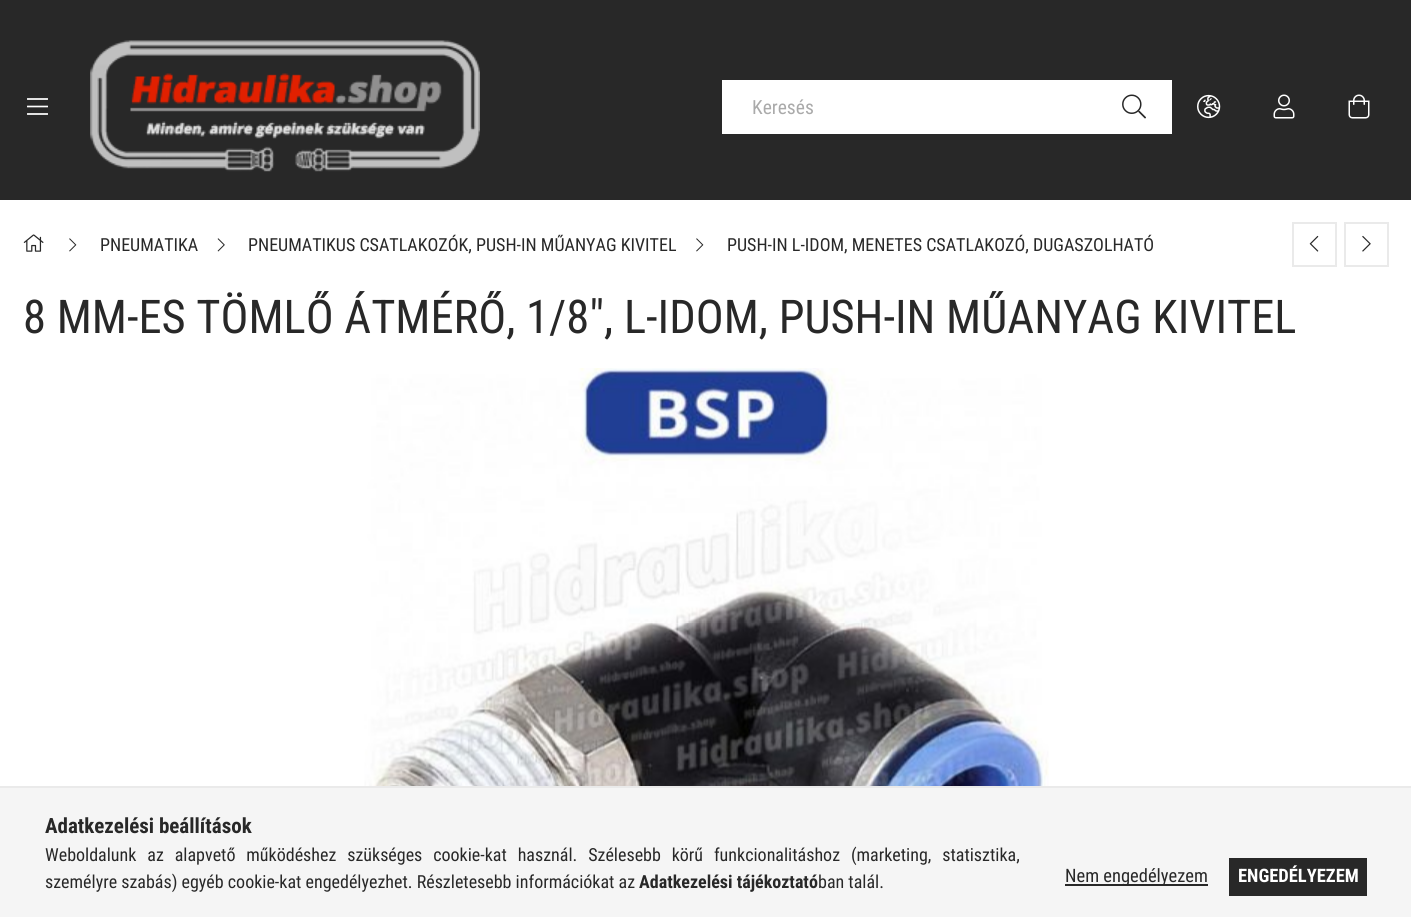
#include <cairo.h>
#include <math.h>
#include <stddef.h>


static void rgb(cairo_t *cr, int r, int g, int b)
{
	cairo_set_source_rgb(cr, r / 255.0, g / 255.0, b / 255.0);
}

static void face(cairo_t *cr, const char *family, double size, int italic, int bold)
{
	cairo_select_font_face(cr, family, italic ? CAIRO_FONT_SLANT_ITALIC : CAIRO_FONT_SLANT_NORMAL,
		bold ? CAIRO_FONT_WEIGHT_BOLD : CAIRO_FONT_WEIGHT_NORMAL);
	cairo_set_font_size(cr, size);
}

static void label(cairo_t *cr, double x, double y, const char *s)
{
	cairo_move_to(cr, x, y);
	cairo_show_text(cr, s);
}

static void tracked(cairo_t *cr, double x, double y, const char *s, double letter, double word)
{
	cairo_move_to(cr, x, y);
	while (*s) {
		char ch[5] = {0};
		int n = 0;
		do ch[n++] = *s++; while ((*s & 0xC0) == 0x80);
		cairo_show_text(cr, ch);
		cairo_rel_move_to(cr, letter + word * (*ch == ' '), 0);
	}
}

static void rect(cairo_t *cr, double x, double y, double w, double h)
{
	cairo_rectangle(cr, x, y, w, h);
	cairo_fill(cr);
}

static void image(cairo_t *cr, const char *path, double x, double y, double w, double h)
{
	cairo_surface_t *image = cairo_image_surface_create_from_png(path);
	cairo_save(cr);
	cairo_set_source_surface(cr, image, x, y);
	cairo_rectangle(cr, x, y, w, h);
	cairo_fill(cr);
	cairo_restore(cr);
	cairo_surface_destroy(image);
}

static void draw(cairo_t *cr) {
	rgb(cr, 255, 255, 255);
	cairo_paint(cr);
	rgb(cr, 40, 40, 40);
	rect(cr, 0, 0, 1411, 200);
	image(cr, "image0.png", 27, 98, 21, 17);
	image(cr, "image1.png", 90, 40, 390, 132);
	rgb(cr, 255, 255, 255);
	rect(cr, 722, 80, 450, 54);
	face(cr, "Roboto Condensed", 19.5, 0, 0);
	rgb(cr, 170, 170, 170);
	label(cr, 752, 114, "Keresés");
	image(cr, "image2.png", 1122, 94, 24, 25);
	image(cr, "image3.png", 1197, 94, 24, 25);
	image(cr, "image4.png", 1273, 94, 22, 25);
	image(cr, "image5.png", 1348, 94, 22, 25);
	image(cr, "image6.png", 23, 234, 21, 18);
	image(cr, "image7.png", 69, 238, 8, 14);
	face(cr, "Roboto Condensed", 18, 0, 0);
	rgb(cr, 40, 40, 40);
	label(cr, 100, 251, "PNEUMATIKA");
	image(cr, "image8.png", 217, 238, 8, 14);
	label(cr, 248, 251, "PNEUMATIKUS CSATLAKOZÓK, PUSH-IN MŰANYAG KIVITEL");
	image(cr, "image7.png", 696, 238, 8, 14);
	label(cr, 727, 251, "PUSH-IN L-IDOM, MENETES CSATLAKOZÓ, DUGASZOLHATÓ");
	cairo_rectangle(cr, 1293, 223, 43, 43);
	rgb(cr, 234, 234, 234);
	cairo_stroke(cr);
	image(cr, "image9.png", 1309, 235, 10, 17);
	cairo_rectangle(cr, 1345, 223, 43, 43);
	cairo_stroke(cr);
	image(cr, "image10.png", 1362, 235, 9, 17);
	face(cr, "Roboto Condensed", 46.5, 0, 0);
	rgb(cr, 40, 40, 40);
	label(cr, 23, 333, "8 MM-ES TÖMLŐ ÁTMÉRŐ, 1/8\", L-IDOM, PUSH-IN MŰANYAG KIVITEL");
	image(cr, "image11.png", 364, 368, 685, 418);
	rgb(cr, 245, 245, 245);
	rect(cr, 0, 788, 1411, 129);
	rgb(cr, 234, 234, 234);
	rect(cr, 0, 786, 1411, 2);
	face(cr, "Roboto Condensed", 21, 0, 1);
	rgb(cr, 40, 40, 40);
	label(cr, 45, 833, "Adatkezelési beállítások");
	face(cr, "Roboto Condensed", 18, 0, 0);
	tracked(cr, 45, 861, "Weboldalunk az alapvető működéshez szükséges cookie-kat használ. Szélesebb körű funkcionalitáshoz (marketing, statisztika,", 0, 6.75);
	label(cr, 45, 888, "személyre szabás) egyéb cookie-kat engedélyezhet. Részletesebb információkat az");
	face(cr, "Roboto Condensed", 18, 0, 1);
	label(cr, 639, 888, "Adatkezelési tájékoztató");
	face(cr, "Roboto Condensed", 18, 0, 0);
	label(cr, 818, 888, "ban talál.");
	rect(cr, 1065, 884, 143, 2);
	face(cr, "Roboto Condensed", 18.5, 0, 0);
	label(cr, 1065, 882, "Nem engedélyezem");
	rect(cr, 1229, 858, 138, 38);
	face(cr, "Roboto Condensed", 18.5, 0, 1);
	rgb(cr, 255, 255, 255);
	label(cr, 1238, 882, "ENGEDÉLYEZEM");
}

int main(void) {
	cairo_surface_t *surface = cairo_image_surface_create(CAIRO_FORMAT_RGB24, 1411, 917);
	cairo_t *cr = cairo_create(surface);
	cairo_font_options_t *options = cairo_font_options_create();
	cairo_font_options_set_hint_metrics(options, CAIRO_HINT_METRICS_OFF);
	cairo_font_options_set_hint_style(options, CAIRO_HINT_STYLE_NONE);
	cairo_set_font_options(cr, options);
	cairo_set_miter_limit(cr, 4);
	draw(cr);
	cairo_surface_write_to_png(surface, "render.png");
	cairo_font_options_destroy(options);
	cairo_destroy(cr);
	cairo_surface_destroy(surface);
	return 0;
}
